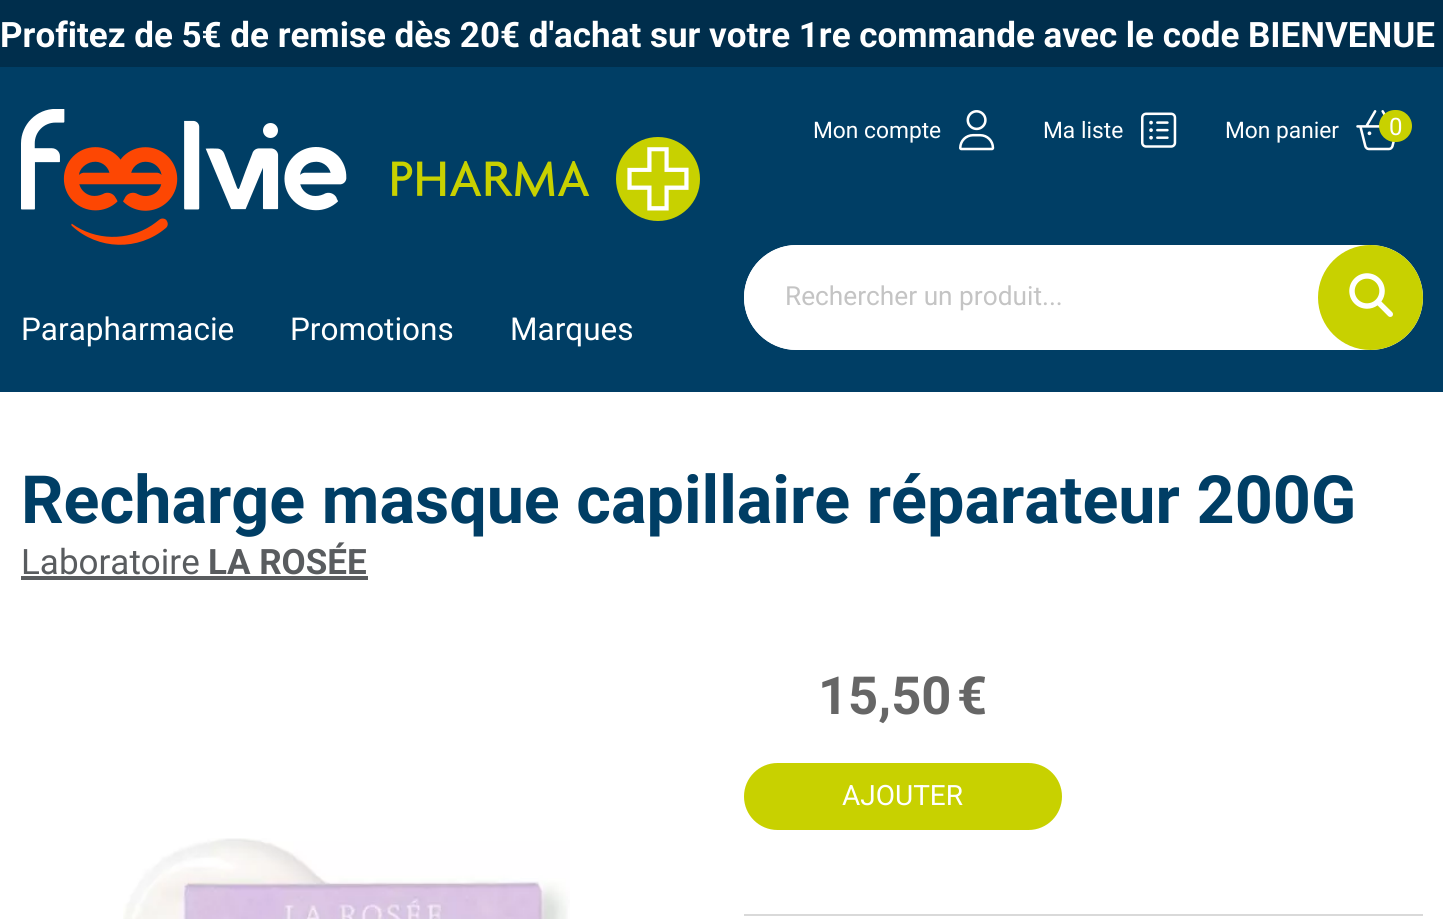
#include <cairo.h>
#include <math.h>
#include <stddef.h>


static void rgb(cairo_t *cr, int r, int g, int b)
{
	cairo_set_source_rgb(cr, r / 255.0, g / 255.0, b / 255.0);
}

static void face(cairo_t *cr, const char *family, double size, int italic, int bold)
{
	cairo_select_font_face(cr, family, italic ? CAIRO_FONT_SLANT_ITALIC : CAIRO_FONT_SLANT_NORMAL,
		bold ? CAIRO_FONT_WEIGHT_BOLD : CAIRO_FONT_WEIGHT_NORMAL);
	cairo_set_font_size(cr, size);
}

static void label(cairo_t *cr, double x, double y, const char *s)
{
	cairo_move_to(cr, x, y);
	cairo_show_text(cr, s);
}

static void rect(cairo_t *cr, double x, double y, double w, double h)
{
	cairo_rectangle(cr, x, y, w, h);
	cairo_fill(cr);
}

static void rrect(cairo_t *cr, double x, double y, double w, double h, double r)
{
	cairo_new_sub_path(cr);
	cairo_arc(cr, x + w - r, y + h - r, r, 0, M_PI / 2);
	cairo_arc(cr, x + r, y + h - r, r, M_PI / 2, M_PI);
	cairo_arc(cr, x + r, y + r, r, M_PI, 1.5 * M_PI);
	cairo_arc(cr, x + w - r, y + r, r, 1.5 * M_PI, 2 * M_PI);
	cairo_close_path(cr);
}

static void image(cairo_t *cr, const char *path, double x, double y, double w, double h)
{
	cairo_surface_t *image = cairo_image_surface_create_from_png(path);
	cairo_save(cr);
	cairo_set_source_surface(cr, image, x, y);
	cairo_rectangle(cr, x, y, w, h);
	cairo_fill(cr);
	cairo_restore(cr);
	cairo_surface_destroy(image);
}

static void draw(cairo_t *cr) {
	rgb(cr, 255, 255, 255);
	cairo_paint(cr);
	rgb(cr, 0, 62, 101);
	rect(cr, 0, 67, 1443, 325);
	rgb(cr, 0, 46, 76);
	rect(cr, 0, 0, 1443, 67);
	face(cr, "Roboto", 35, 0, 1);
	rgb(cr, 255, 255, 255);
	label(cr, 0, 47, "Profitez de 5€ de remise dès 20€ d'achat sur votre 1re commande avec le code BIENVENUE");
	image(cr, "image0.png", 21, 109, 679, 136);
	face(cr, "Roboto", 22.75, 0, 0);
	label(cr, 813, 138, "Mon compte");
	image(cr, "image1.png", 959, 110, 36, 41);
	label(cr, 1043, 138, "Ma liste");
	image(cr, "image2.png", 1141, 112, 36, 36);
	label(cr, 1225, 138, "Mon panier");
	image(cr, "image3.png", 1356, 110, 39, 41);
	rgb(cr, 200, 209, 0);
	rrect(cr, 1379, 110, 33, 32, 16);
	cairo_fill(cr);
	face(cr, "Roboto", 24, 0, 0);
	rgb(cr, 255, 255, 255);
	label(cr, 1389, 135, "0");
	rrect(cr, 744, 245, 679, 105, 52.5);
	cairo_fill(cr);
	cairo_new_path(cr);
	cairo_move_to(cr, 796.5, 245);
	cairo_line_to(cr, 1320, 245);
	cairo_line_to(cr, 1320, 350);
	cairo_line_to(cr, 796.5, 350);
	cairo_curve_to(cr, 767.5, 350, 744, 326.5, 744, 297.5);
	cairo_curve_to(cr, 744, 268.5, 767.5, 245, 796.5, 245);
	cairo_close_path(cr);
	cairo_fill(cr);
	face(cr, "Roboto", 26.25, 0, 0);
	rgb(cr, 196, 196, 196);
	label(cr, 785, 305, "Rechercher un produit...");
	rgb(cr, 200, 209, 0);
	cairo_new_path(cr);
	cairo_arc(cr, 1370.5, 297.5, 51.5, 0, 2 * M_PI);
	cairo_fill_preserve(cr);
	cairo_stroke(cr);
	image(cr, "image4.png", 1349, 273, 44, 44);
	face(cr, "Roboto", 31.5, 0, 0);
	rgb(cr, 255, 255, 255);
	label(cr, 21, 340, "Parapharmacie");
	label(cr, 290, 340, "Promotions");
	label(cr, 510, 340, "Marques");
	face(cr, "Roboto", 66.5, 0, 1);
	rgb(cr, 0, 62, 101);
	label(cr, 21, 523, "Recharge masque capillaire réparateur 200G");
	face(cr, "Roboto", 35, 0, 0);
	rgb(cr, 89, 92, 95);
	label(cr, 21, 574, "Laboratoire");
	rect(cr, 21, 576, 347, 4);
	face(cr, "Roboto", 35, 0, 1);
	label(cr, 208, 574, "LA ROSÉE");
	face(cr, "Roboto", 52.5, 0, 1);
	rgb(cr, 102, 102, 102);
	label(cr, 818, 714, "15,50");
	label(cr, 957, 714, "€");
	rgb(cr, 200, 209, 0);
	rrect(cr, 745, 764, 316, 65, 32.5);
	cairo_fill_preserve(cr);
	cairo_stroke(cr);
	face(cr, "Roboto", 28, 0, 0);
	rgb(cr, 255, 255, 255);
	label(cr, 842, 805, "AJOUTER");
	rgb(cr, 217, 217, 217);
	rect(cr, 744, 914, 679, 2);
	image(cr, "image5.png", 123, 838, 447, 81);
}

int main(void) {
	cairo_surface_t *surface = cairo_image_surface_create(CAIRO_FORMAT_RGB24, 1443, 919);
	cairo_t *cr = cairo_create(surface);
	cairo_font_options_t *options = cairo_font_options_create();
	cairo_font_options_set_hint_metrics(options, CAIRO_HINT_METRICS_OFF);
	cairo_font_options_set_hint_style(options, CAIRO_HINT_STYLE_NONE);
	cairo_set_font_options(cr, options);
	cairo_set_miter_limit(cr, 4);
	draw(cr);
	cairo_surface_write_to_png(surface, "render.png");
	cairo_font_options_destroy(options);
	cairo_destroy(cr);
	cairo_surface_destroy(surface);
	return 0;
}
